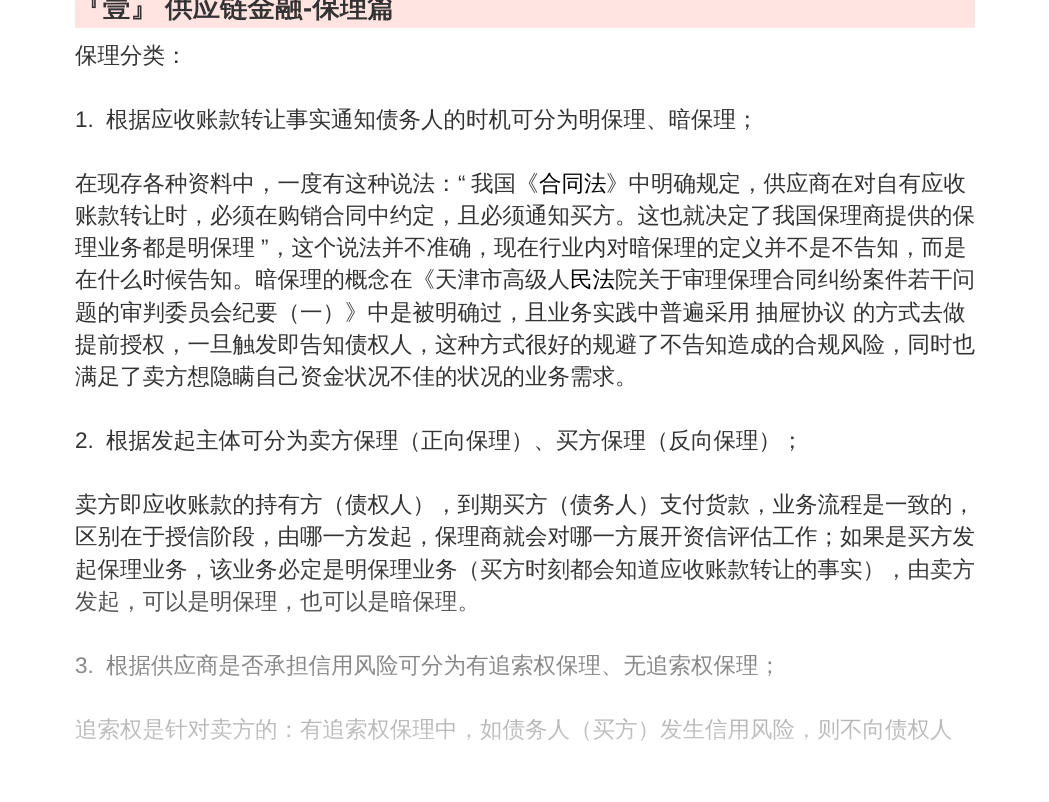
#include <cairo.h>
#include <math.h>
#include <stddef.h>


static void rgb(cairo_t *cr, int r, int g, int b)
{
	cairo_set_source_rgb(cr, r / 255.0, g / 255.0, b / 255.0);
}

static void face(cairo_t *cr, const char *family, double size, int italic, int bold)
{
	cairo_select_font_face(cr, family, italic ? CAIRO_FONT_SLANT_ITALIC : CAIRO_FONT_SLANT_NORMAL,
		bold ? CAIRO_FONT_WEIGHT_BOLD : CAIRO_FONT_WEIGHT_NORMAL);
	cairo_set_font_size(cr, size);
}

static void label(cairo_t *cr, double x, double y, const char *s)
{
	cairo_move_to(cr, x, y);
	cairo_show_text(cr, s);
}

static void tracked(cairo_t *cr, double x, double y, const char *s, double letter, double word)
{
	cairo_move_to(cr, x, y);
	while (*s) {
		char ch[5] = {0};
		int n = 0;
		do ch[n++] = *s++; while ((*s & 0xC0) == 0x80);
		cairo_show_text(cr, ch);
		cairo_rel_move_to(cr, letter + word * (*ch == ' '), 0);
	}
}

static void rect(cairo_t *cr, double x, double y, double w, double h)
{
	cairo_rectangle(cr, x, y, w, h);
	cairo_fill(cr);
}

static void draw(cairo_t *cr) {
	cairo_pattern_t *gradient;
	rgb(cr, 255, 255, 255);
	cairo_paint(cr);
	rgb(cr, 255, 228, 225);
	rect(cr, 75, 0, 900, 28);
	face(cr, "WenQuanYi Zen Hei", 27.5, 0, 1);
	rgb(cr, 51, 51, 51);
	tracked(cr, 75, 17, "『壹』 供应链金融", 0, -1);
	face(cr, "Liberation Sans", 27.5, 0, 1);
	label(cr, 303, 17, "-");
	face(cr, "WenQuanYi Zen Hei", 27.5, 0, 1);
	label(cr, 312, 17, "保理篇");
	face(cr, "WenQuanYi Zen Hei Medium", 22.5, 0, 0);
	label(cr, 75, 63, "保理分类：");
	face(cr, "Liberation Sans", 22.5, 0, 0);
	label(cr, 75, 127, "1.");
	face(cr, "WenQuanYi Zen Hei Medium", 22.5, 0, 0);
	label(cr, 106, 127, "根据应收账款转让事实通知债务人的时机可分为明保理、暗保理；");
	label(cr, 75, 191, "在现存各种资料中，一度有这种说法：");
	face(cr, "Liberation Sans", 22.5, 0, 0);
	label(cr, 458, 191, "“");
	face(cr, "WenQuanYi Zen Hei Medium", 22.5, 0, 0);
	label(cr, 471, 191, "我国《");
	rgb(cr, 0, 0, 0);
	label(cr, 539, 191, "合同法");
	rgb(cr, 51, 51, 51);
	label(cr, 606, 191, "》中明确规定，供应商在对自有应收");
	label(cr, 75, 223, "账款转让时，必须在购销合同中约定，且必须通知买方。这也就决定了我国保理商提供的保");
	label(cr, 75, 255, "理业务都是明保理");
	face(cr, "Liberation Sans", 22.5, 0, 0);
	label(cr, 261, 255, "”");
	face(cr, "WenQuanYi Zen Hei Medium", 22.5, 0, 0);
	label(cr, 269, 255, "，这个说法并不准确，现在行业内对暗保理的定义并不是不告知，而是");
	label(cr, 75, 287, "在什么时候告知。暗保理的概念在《天津市高级人");
	rgb(cr, 0, 0, 0);
	label(cr, 570, 287, "民法");
	rgb(cr, 51, 51, 51);
	label(cr, 615, 287, "院关于审理保理合同纠纷案件若干问");
	label(cr, 75, 320, "题的审判委员会纪要（一）》中是被明确过，且业务实践中普遍采用");
	label(cr, 756, 320, "抽屉协议");
	label(cr, 853, 320, "的方式去做");
	label(cr, 75, 352, "提前授权，一旦触发即告知债权人，这种方式很好的规避了不告知造成的合规风险，同时也");
	label(cr, 75, 384, "满足了卖方想隐瞒自己资金状况不佳的状况的业务需求。");
	face(cr, "Liberation Sans", 22.5, 0, 0);
	label(cr, 75, 448, "2.");
	face(cr, "WenQuanYi Zen Hei Medium", 22.5, 0, 0);
	label(cr, 106, 448, "根据发起主体可分为卖方保理（正向保理）、买方保理（反向保理）；");
	label(cr, 75, 512, "卖方即应收账款的持有方（债权人），到期买方（债务人）支付货款，业务流程是一致的，");
	label(cr, 75, 544, "区别在于授信阶段，由哪一方发起，保理商就会对哪一方展开资信评估工作；如果是买方发");
	label(cr, 75, 577, "起保理业务，该业务必定是明保理业务（买方时刻都会知道应收账款转让的事实），由卖方");
	label(cr, 75, 609, "发起，可以是明保理，也可以是暗保理。");
	face(cr, "Liberation Sans", 22.5, 0, 0);
	label(cr, 75, 673, "3.");
	face(cr, "WenQuanYi Zen Hei Medium", 22.5, 0, 0);
	label(cr, 106, 673, "根据供应商是否承担信用风险可分为有追索权保理、无追索权保理；");
	label(cr, 75, 737, "追索权是针对卖方的：有追索权保理中，如债务人（买方）发生信用风险，则不向债权人");
	gradient = cairo_pattern_create_linear(75, 561, 75, 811);
	cairo_pattern_add_color_stop_rgba(gradient, 0, 1, 1, 1, 0);
	cairo_pattern_add_color_stop_rgba(gradient, 1, 1, 1, 1, 1);
	cairo_set_source(cr, gradient);
	cairo_pattern_destroy(gradient);
	rect(cr, 75, 566, 895, 175);
}

int main(void) {
	cairo_surface_t *surface = cairo_image_surface_create(CAIRO_FORMAT_RGB24, 1049, 802);
	cairo_t *cr = cairo_create(surface);
	cairo_font_options_t *options = cairo_font_options_create();
	cairo_font_options_set_hint_metrics(options, CAIRO_HINT_METRICS_OFF);
	cairo_font_options_set_hint_style(options, CAIRO_HINT_STYLE_NONE);
	cairo_set_font_options(cr, options);
	cairo_set_miter_limit(cr, 4);
	draw(cr);
	cairo_surface_write_to_png(surface, "render.png");
	cairo_font_options_destroy(options);
	cairo_destroy(cr);
	cairo_surface_destroy(surface);
	return 0;
}
